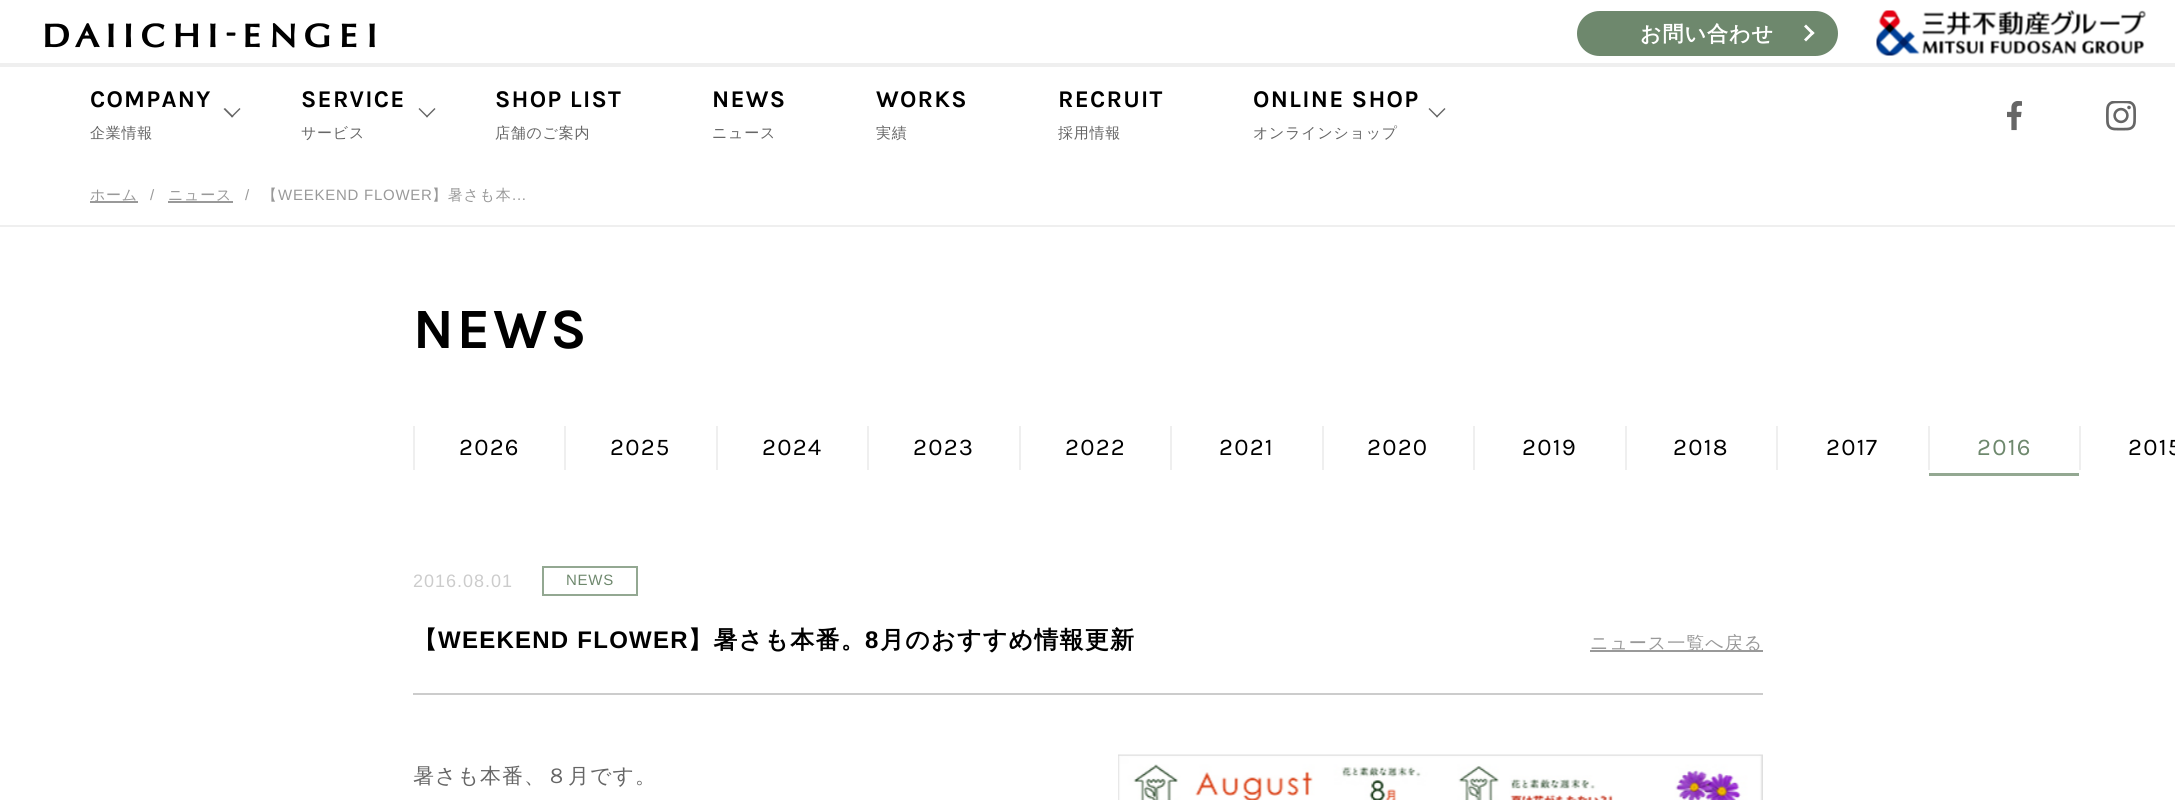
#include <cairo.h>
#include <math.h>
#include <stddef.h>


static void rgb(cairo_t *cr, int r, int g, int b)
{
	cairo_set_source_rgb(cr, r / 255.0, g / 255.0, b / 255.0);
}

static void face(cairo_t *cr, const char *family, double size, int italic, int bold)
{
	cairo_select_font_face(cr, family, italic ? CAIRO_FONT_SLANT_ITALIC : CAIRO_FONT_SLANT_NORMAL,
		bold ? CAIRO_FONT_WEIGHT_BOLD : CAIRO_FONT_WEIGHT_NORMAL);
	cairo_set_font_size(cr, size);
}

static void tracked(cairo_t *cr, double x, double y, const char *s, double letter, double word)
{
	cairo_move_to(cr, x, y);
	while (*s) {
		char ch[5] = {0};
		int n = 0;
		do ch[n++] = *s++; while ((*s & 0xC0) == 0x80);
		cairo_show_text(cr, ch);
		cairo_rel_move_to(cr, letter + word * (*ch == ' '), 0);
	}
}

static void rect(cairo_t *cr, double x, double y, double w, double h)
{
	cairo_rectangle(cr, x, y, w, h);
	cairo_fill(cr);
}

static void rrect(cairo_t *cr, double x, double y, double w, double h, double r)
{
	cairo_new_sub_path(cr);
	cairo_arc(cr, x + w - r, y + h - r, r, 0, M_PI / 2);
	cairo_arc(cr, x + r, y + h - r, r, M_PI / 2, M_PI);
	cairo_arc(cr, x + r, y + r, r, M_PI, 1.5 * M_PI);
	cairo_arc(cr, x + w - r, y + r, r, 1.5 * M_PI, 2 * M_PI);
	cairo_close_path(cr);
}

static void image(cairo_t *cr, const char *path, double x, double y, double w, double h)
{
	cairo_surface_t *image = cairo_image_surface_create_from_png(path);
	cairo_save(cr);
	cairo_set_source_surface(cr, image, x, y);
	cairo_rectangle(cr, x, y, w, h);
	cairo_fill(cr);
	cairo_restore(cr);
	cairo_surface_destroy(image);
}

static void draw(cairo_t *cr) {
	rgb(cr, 255, 255, 255);
	cairo_paint(cr);
	image(cr, "image0.png", 45, 23, 330, 25);
	rgb(cr, 110, 136, 109);
	rrect(cr, 1578.5, 12.5, 258, 42, 21);
	cairo_fill_preserve(cr);
	cairo_set_line_width(cr, 3);
	cairo_stroke(cr);
	face(cr, "WenQuanYi Zen Hei", 21, 0, 1);
	rgb(cr, 255, 255, 255);
	tracked(cr, 1640, 41, "お問い合わせ", 1, 0);
	cairo_new_path(cr);
	cairo_move_to(cr, 1806, 24.5);
	cairo_line_to(cr, 1814.5, 33);
	cairo_line_to(cr, 1812.5, 35);
	cairo_line_to(cr, 1804, 26.5);
	cairo_close_path(cr);
	cairo_fill(cr);
	cairo_new_path(cr);
	cairo_move_to(cr, 1812.5, 31);
	cairo_line_to(cr, 1814.5, 33);
	cairo_line_to(cr, 1806, 41.5);
	cairo_line_to(cr, 1804, 39.5);
	cairo_close_path(cr);
	cairo_fill(cr);
	image(cr, "image1.png", 1876, 10, 270, 46);
	rgb(cr, 239, 239, 239);
	rect(cr, 0, 63, 2175, 4);
	face(cr, "Karla", 24, 0, 1);
	rgb(cr, 0, 0, 0);
	tracked(cr, 90, 107, "COMPANY", 1.25, 0);
	rgb(cr, 102, 102, 102);
	cairo_new_path(cr);
	cairo_move_to(cr, 239.5, 108);
	cairo_line_to(cr, 240.5, 109);
	cairo_line_to(cr, 232, 117.5);
	cairo_line_to(cr, 231, 116.5);
	cairo_close_path(cr);
	cairo_fill(cr);
	cairo_new_path(cr);
	cairo_move_to(cr, 225, 108);
	cairo_line_to(cr, 233.5, 116.5);
	cairo_line_to(cr, 232, 117.5);
	cairo_line_to(cr, 223.5, 109);
	cairo_close_path(cr);
	cairo_fill(cr);
	face(cr, "WenQuanYi Zen Hei Medium", 15, 0, 0);
	tracked(cr, 90, 138, "企業情報", 0.75, 0);
	face(cr, "Karla", 24, 0, 1);
	rgb(cr, 0, 0, 0);
	tracked(cr, 301, 107, "SERVICE", 1.25, 0);
	rgb(cr, 102, 102, 102);
	cairo_new_path(cr);
	cairo_move_to(cr, 434.5, 108);
	cairo_line_to(cr, 435.5, 109);
	cairo_line_to(cr, 427, 117.5);
	cairo_line_to(cr, 426, 116.5);
	cairo_close_path(cr);
	cairo_fill(cr);
	cairo_new_path(cr);
	cairo_move_to(cr, 419.5, 108);
	cairo_line_to(cr, 428, 116.5);
	cairo_line_to(cr, 427, 117.5);
	cairo_line_to(cr, 418.5, 109);
	cairo_close_path(cr);
	cairo_fill(cr);
	face(cr, "WenQuanYi Zen Hei Medium", 15, 0, 0);
	tracked(cr, 301, 138, "サービス", 0.75, 0);
	face(cr, "Karla", 24, 0, 1);
	rgb(cr, 0, 0, 0);
	tracked(cr, 495, 107, "SHOP LIST", 1.25, 0);
	face(cr, "WenQuanYi Zen Hei Medium", 15, 0, 0);
	rgb(cr, 102, 102, 102);
	tracked(cr, 495, 138, "店舗のご案内", 0.75, 0);
	face(cr, "Karla", 24, 0, 1);
	rgb(cr, 0, 0, 0);
	tracked(cr, 712, 107, "NEWS", 1.25, 0);
	face(cr, "WenQuanYi Zen Hei Medium", 15, 0, 0);
	rgb(cr, 102, 102, 102);
	tracked(cr, 712, 138, "ニュース", 0.75, 0);
	face(cr, "Karla", 24, 0, 1);
	rgb(cr, 0, 0, 0);
	tracked(cr, 876, 107, "WORKS", 1.25, 0);
	face(cr, "WenQuanYi Zen Hei Medium", 15, 0, 0);
	rgb(cr, 102, 102, 102);
	tracked(cr, 876, 138, "実績", 0.75, 0);
	face(cr, "Karla", 24, 0, 1);
	rgb(cr, 0, 0, 0);
	tracked(cr, 1058, 107, "RECRUIT", 1.25, 0);
	face(cr, "WenQuanYi Zen Hei Medium", 15, 0, 0);
	rgb(cr, 102, 102, 102);
	tracked(cr, 1058, 138, "採用情報", 0.75, 0);
	face(cr, "Karla", 24, 0, 1);
	rgb(cr, 0, 0, 0);
	tracked(cr, 1253, 107, "ONLINE SHOP", 1.25, 0);
	rgb(cr, 102, 102, 102);
	cairo_new_path(cr);
	cairo_move_to(cr, 1444.5, 108);
	cairo_line_to(cr, 1445.5, 109);
	cairo_line_to(cr, 1437, 117.5);
	cairo_line_to(cr, 1436, 116.5);
	cairo_close_path(cr);
	cairo_fill(cr);
	cairo_new_path(cr);
	cairo_move_to(cr, 1429.5, 108);
	cairo_line_to(cr, 1438, 116.5);
	cairo_line_to(cr, 1437, 117.5);
	cairo_line_to(cr, 1428.5, 109);
	cairo_close_path(cr);
	cairo_fill(cr);
	face(cr, "WenQuanYi Zen Hei Medium", 15, 0, 0);
	tracked(cr, 1253, 138, "オンラインショップ", 0.75, 0);
	image(cr, "image2.png", 2007, 101, 15, 30);
	image(cr, "image3.png", 2106, 101, 30, 30);
	rgb(cr, 239, 239, 239);
	rect(cr, 0, 225, 2175, 2);
	rgb(cr, 153, 153, 153);
	rect(cr, 90, 201, 48, 2);
	tracked(cr, 90, 200, "ホーム", 0.75, 0);
	face(cr, "Liberation Sans", 15, 0, 0);
	tracked(cr, 150, 200, "/", 0.75, 0);
	face(cr, "WenQuanYi Zen Hei Medium", 15, 0, 0);
	tracked(cr, 168, 200, "ニュース", 0.75, 0);
	rect(cr, 168, 201, 65, 2);
	face(cr, "Liberation Sans", 15, 0, 0);
	tracked(cr, 245, 200, "/", 0.75, 0);
	face(cr, "WenQuanYi Zen Hei Medium", 15, 0, 0);
	tracked(cr, 262, 200, "【", 0.75, 0);
	face(cr, "Liberation Sans", 15, 0, 0);
	tracked(cr, 278, 200, "WEEKEND FLOWER", 0.75, 0);
	face(cr, "WenQuanYi Zen Hei Medium", 15, 0, 0);
	tracked(cr, 432, 200, "】暑さも本", 0.75, 0);
	face(cr, "Liberation Sans", 15, 0, 0);
	tracked(cr, 512, 200, "...", 0.75, 0);
	face(cr, "Karla", 57, 0, 1);
	rgb(cr, 0, 0, 0);
	tracked(cr, 413, 348, "NEWS", 3, 0);
	rgb(cr, 239, 239, 239);
	rect(cr, 413, 426, 2, 44);
	face(cr, "Karla", 24, 0, 0);
	rgb(cr, 0, 0, 0);
	tracked(cr, 459, 455, "2026", 1.25, 0);
	rgb(cr, 239, 239, 239);
	rect(cr, 564, 426, 2, 44);
	rgb(cr, 0, 0, 0);
	tracked(cr, 610, 455, "2025", 1.25, 0);
	rgb(cr, 239, 239, 239);
	rect(cr, 716, 426, 2, 44);
	rgb(cr, 0, 0, 0);
	tracked(cr, 762, 455, "2024", 1.25, 0);
	rgb(cr, 239, 239, 239);
	rect(cr, 867, 426, 2, 44);
	rgb(cr, 0, 0, 0);
	tracked(cr, 913, 455, "2023", 1.25, 0);
	rgb(cr, 239, 239, 239);
	rect(cr, 1019, 426, 2, 44);
	rgb(cr, 0, 0, 0);
	tracked(cr, 1065, 455, "2022", 1.25, 0);
	rgb(cr, 239, 239, 239);
	rect(cr, 1170, 426, 2, 44);
	rgb(cr, 0, 0, 0);
	tracked(cr, 1219, 455, "2021", 1.25, 0);
	rgb(cr, 239, 239, 239);
	rect(cr, 1322, 426, 2, 44);
	rgb(cr, 0, 0, 0);
	tracked(cr, 1367, 455, "2020", 1.25, 0);
	rgb(cr, 239, 239, 239);
	rect(cr, 1473, 426, 2, 44);
	rgb(cr, 0, 0, 0);
	tracked(cr, 1522, 455, "2019", 1.25, 0);
	rgb(cr, 239, 239, 239);
	rect(cr, 1625, 426, 2, 44);
	rgb(cr, 0, 0, 0);
	tracked(cr, 1673, 455, "2018", 1.25, 0);
	rgb(cr, 239, 239, 239);
	rect(cr, 1776, 426, 2, 44);
	rgb(cr, 0, 0, 0);
	tracked(cr, 1826, 455, "2017", 1.25, 0);
	rgb(cr, 239, 239, 239);
	rect(cr, 1928, 426, 2, 44);
	rgb(cr, 110, 136, 109);
	tracked(cr, 1977, 455, "2016", 1.25, 0);
	rgb(cr, 147, 168, 146);
	rect(cr, 1929, 473, 150, 3);
	rgb(cr, 239, 239, 239);
	rect(cr, 2079, 426, 2, 44);
	rgb(cr, 0, 0, 0);
	tracked(cr, 2128, 455, "2015", 1.25, 0);
	rgb(cr, 204, 204, 204);
	rect(cr, 413, 693, 1350, 2);
	face(cr, "Liberation Sans", 18, 0, 0);
	tracked(cr, 413, 587, "2016.08.01", 1, 0);
	cairo_rectangle(cr, 543, 567, 94, 28);
	rgb(cr, 147, 168, 146);
	cairo_set_line_width(cr, 2);
	cairo_stroke(cr);
	face(cr, "Liberation Sans", 15, 0, 0);
	rgb(cr, 110, 136, 109);
	tracked(cr, 566, 585, "NEWS", 0.75, 0);
	face(cr, "WenQuanYi Zen Hei", 24, 0, 1);
	rgb(cr, 0, 0, 0);
	tracked(cr, 413, 648, "【", 1.25, 0);
	face(cr, "Liberation Sans", 24, 0, 1);
	tracked(cr, 438, 648, "WEEKEND FLOWER", 1.25, 0);
	face(cr, "WenQuanYi Zen Hei", 24, 0, 1);
	tracked(cr, 688, 648, "】暑さも本番。", 1.25, 0);
	face(cr, "Liberation Sans", 24, 0, 1);
	tracked(cr, 865, 648, "8", 1.25, 0);
	face(cr, "WenQuanYi Zen Hei", 24, 0, 1);
	tracked(cr, 880, 648, "月のおすすめ情報更新", 1.25, 0);
	rgb(cr, 153, 153, 153);
	rect(cr, 1590, 650, 173, 2);
	face(cr, "WenQuanYi Zen Hei Medium", 18, 0, 0);
	tracked(cr, 1590, 649, "ニュース一覧へ戻る", 1, 0);
	face(cr, "WenQuanYi Zen Hei Medium", 21, 0, 0);
	rgb(cr, 102, 102, 102);
	tracked(cr, 413, 783, "暑さも本番、８月です。", 1, 0);
	image(cr, "image4.png", 1118, 754, 645, 46);
}

int main(void) {
	cairo_surface_t *surface = cairo_image_surface_create(CAIRO_FORMAT_RGB24, 2175, 800);
	cairo_t *cr = cairo_create(surface);
	cairo_font_options_t *options = cairo_font_options_create();
	cairo_font_options_set_hint_metrics(options, CAIRO_HINT_METRICS_OFF);
	cairo_font_options_set_hint_style(options, CAIRO_HINT_STYLE_NONE);
	cairo_set_font_options(cr, options);
	cairo_set_miter_limit(cr, 4);
	draw(cr);
	cairo_surface_write_to_png(surface, "render.png");
	cairo_font_options_destroy(options);
	cairo_destroy(cr);
	cairo_surface_destroy(surface);
	return 0;
}
